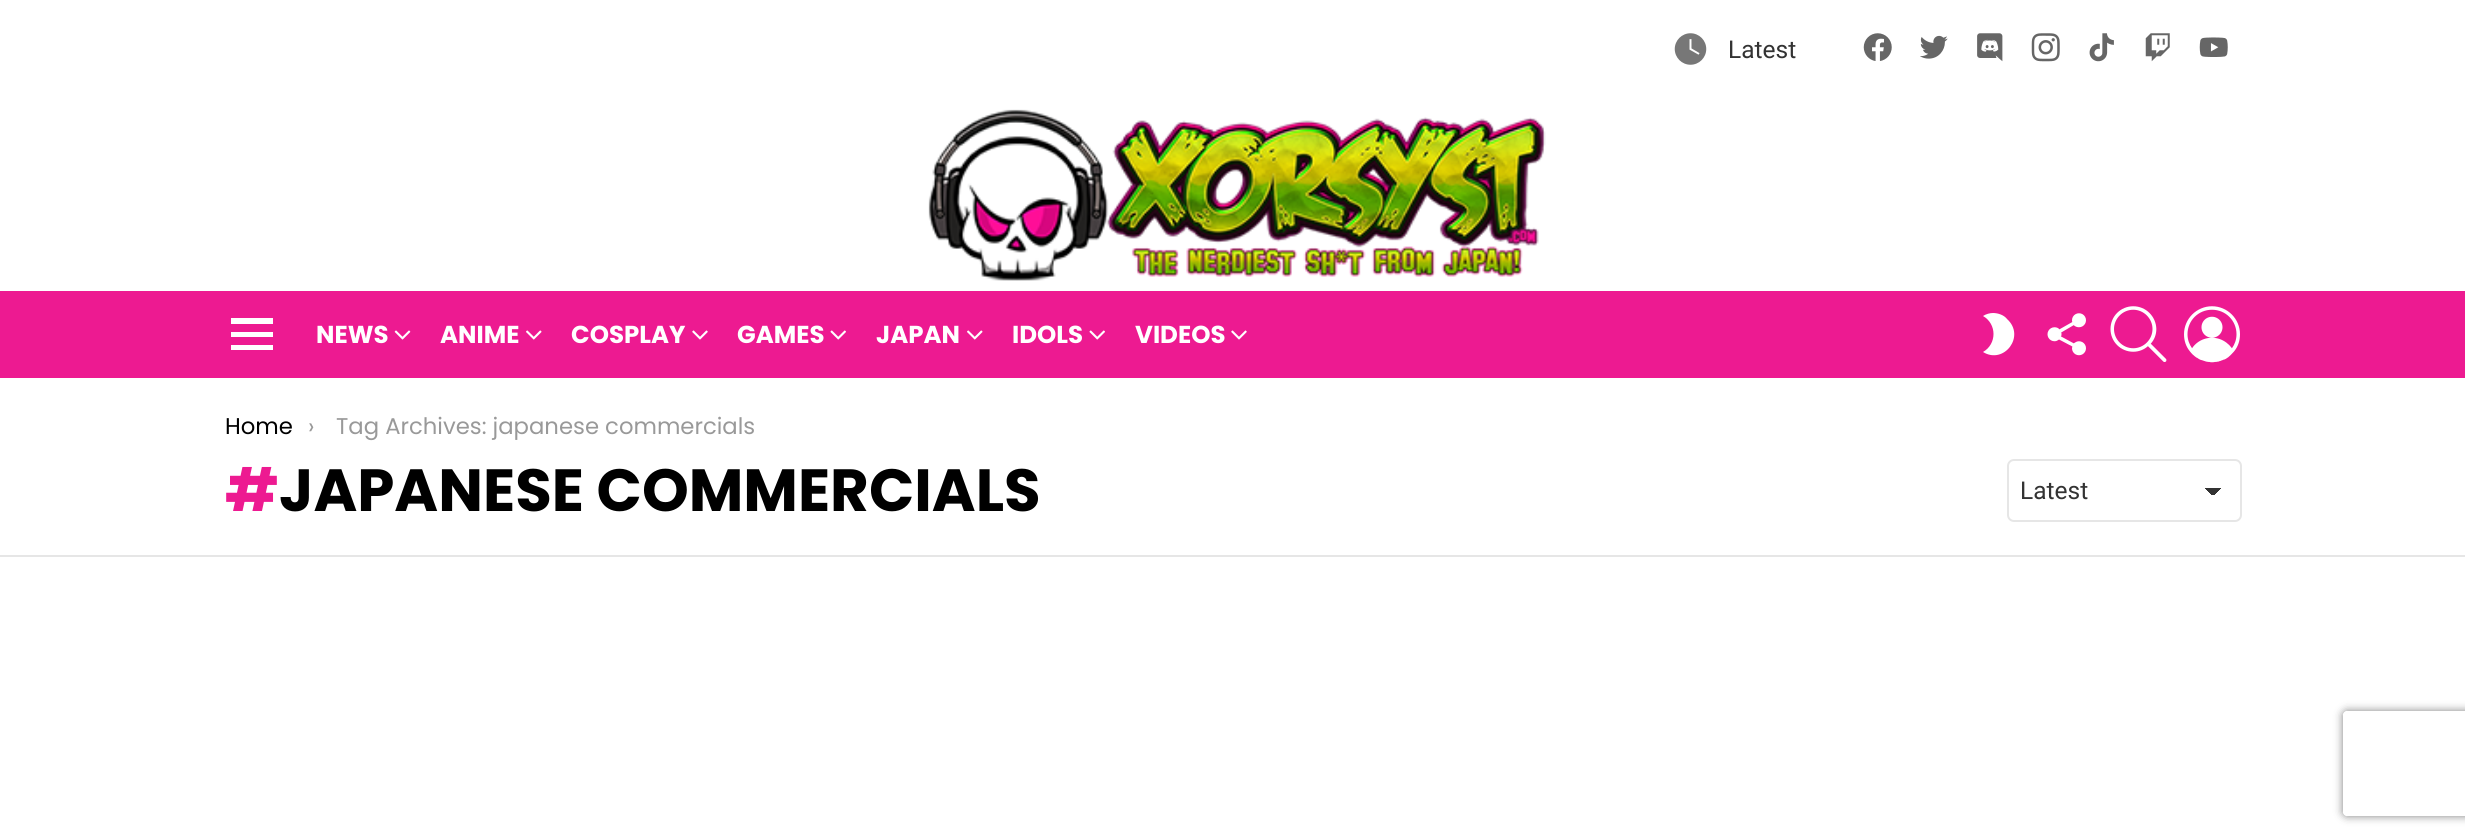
#include <cairo.h>
#include <math.h>
#include <stddef.h>


static void rgb(cairo_t *cr, int r, int g, int b)
{
	cairo_set_source_rgb(cr, r / 255.0, g / 255.0, b / 255.0);
}

static void face(cairo_t *cr, const char *family, double size, int italic, int bold)
{
	cairo_select_font_face(cr, family, italic ? CAIRO_FONT_SLANT_ITALIC : CAIRO_FONT_SLANT_NORMAL,
		bold ? CAIRO_FONT_WEIGHT_BOLD : CAIRO_FONT_WEIGHT_NORMAL);
	cairo_set_font_size(cr, size);
}

static void label(cairo_t *cr, double x, double y, const char *s)
{
	cairo_move_to(cr, x, y);
	cairo_show_text(cr, s);
}

static void rect(cairo_t *cr, double x, double y, double w, double h)
{
	cairo_rectangle(cr, x, y, w, h);
	cairo_fill(cr);
}

static void rrect(cairo_t *cr, double x, double y, double w, double h, double r)
{
	cairo_new_sub_path(cr);
	cairo_arc(cr, x + w - r, y + h - r, r, 0, M_PI / 2);
	cairo_arc(cr, x + r, y + h - r, r, M_PI / 2, M_PI);
	cairo_arc(cr, x + r, y + r, r, M_PI, 1.5 * M_PI);
	cairo_arc(cr, x + w - r, y + r, r, 1.5 * M_PI, 2 * M_PI);
	cairo_close_path(cr);
}

static void soft_shadow(cairo_t *cr, double x, double y, double w, double h, double r, double blur, double alpha)
{
	cairo_push_group_with_content(cr, CAIRO_CONTENT_ALPHA);
	cairo_set_operator(cr, CAIRO_OPERATOR_SOURCE);
	for (int i = 15; i >= -15 && fmin(w, h) + blur * i / 3 > 0; i -= 2) {
		double e = blur * i / 6;
		cairo_set_source_rgba(cr, 0, 0, 0, alpha * erfc((i - 1) / 8.5) / 2);
		rrect(cr, x - e, y - e, w + 2 * e, h + 2 * e, fmax(0, fmin(r + e + blur * .6, fmin(w, h) / 2 + e)));
		cairo_fill(cr);
	}
	cairo_pattern_t *soft = cairo_pop_group(cr);
	cairo_mask(cr, soft);
	cairo_pattern_destroy(soft);
}

static void image(cairo_t *cr, const char *path, double x, double y, double w, double h)
{
	cairo_surface_t *image = cairo_image_surface_create_from_png(path);
	cairo_save(cr);
	cairo_set_source_surface(cr, image, x, y);
	cairo_rectangle(cr, x, y, w, h);
	cairo_fill(cr);
	cairo_restore(cr);
	cairo_surface_destroy(image);
}

static void draw(cairo_t *cr) {
	cairo_pattern_t *gradient;
	rgb(cr, 255, 255, 255);
	cairo_paint(cr);
	image(cr, "image0.png", 1674, 33, 33, 32);
	face(cr, "Roboto", 24.5, 0, 0);
	rgb(cr, 51, 51, 51);
	label(cr, 1728, 58, "Latest");
	image(cr, "image1.png", 1863, 33, 29, 28);
	image(cr, "image2.png", 1920, 35, 28, 24);
	image(cr, "image3.png", 1977, 33, 26, 29);
	image(cr, "image4.png", 2031, 33, 29, 29);
	image(cr, "image5.png", 2089, 33, 25, 29);
	image(cr, "image6.png", 2145, 33, 25, 29);
	image(cr, "image7.png", 2199, 37, 29, 20);
	image(cr, "image8.png", 928, 109, 618, 172);
	rgb(cr, 237, 26, 145);
	rect(cr, 0, 291, 2465, 87);
	rgb(cr, 255, 255, 255);
	cairo_new_path(cr);
	cairo_move_to(cr, 231, 318);
	cairo_line_to(cr, 273, 318);
	cairo_line_to(cr, 273, 324);
	cairo_line_to(cr, 231, 324);
	cairo_close_path(cr);
	cairo_move_to(cr, 231, 332);
	cairo_line_to(cr, 273, 332);
	cairo_line_to(cr, 273, 337);
	cairo_line_to(cr, 231, 337);
	cairo_close_path(cr);
	cairo_move_to(cr, 231, 345);
	cairo_line_to(cr, 273, 345);
	cairo_line_to(cr, 273, 350);
	cairo_line_to(cr, 231, 350);
	cairo_close_path(cr);
	cairo_fill(cr);
	face(cr, "Poppins", 24.5, 0, 1);
	label(cr, 316, 343, "NEWS");
	image(cr, "image9.png", 394, 330, 17, 10);
	label(cr, 440, 343, "ANIME");
	image(cr, "image10.png", 526, 330, 16, 10);
	label(cr, 571, 343, "COSPLAY");
	image(cr, "image11.png", 692, 330, 16, 10);
	label(cr, 737, 343, "GAMES");
	image(cr, "image12.png", 830, 330, 16, 10);
	label(cr, 876, 343, "JAPAN");
	image(cr, "image10.png", 967, 330, 16, 10);
	label(cr, 1012, 343, "IDOLS");
	image(cr, "image12.png", 1089, 330, 16, 10);
	label(cr, 1135, 343, "VIDEOS");
	image(cr, "image11.png", 1231, 330, 16, 10);
	cairo_new_path(cr);
	cairo_move_to(cr, 1993, 313);
	cairo_curve_to(cr, 1990, 313, 1986, 314, 1983, 316);
	cairo_curve_to(cr, 1997, 324, 1997, 344, 1983, 352);
	cairo_curve_to(cr, 2004, 365, 2026, 336, 2007, 319);
	cairo_curve_to(cr, 2004, 315, 1998, 313, 1993, 313);
	cairo_close_path(cr);
	cairo_fill(cr);
	image(cr, "image13.png", 2047, 313, 39, 43);
	image(cr, "image14.png", 2110, 306, 57, 56);
	image(cr, "image15.png", 2184, 306, 56, 57);
	face(cr, "Poppins", 22.75, 0, 0);
	rgb(cr, 0, 0, 0);
	label(cr, 225, 434, "Home");
	rgb(cr, 153, 153, 153);
	label(cr, 308, 434, "›");
	label(cr, 336, 434, "Tag Archives: japanese commercials");
	face(cr, "Poppins", 59.5, 0, 1);
	rgb(cr, 237, 26, 145);
	label(cr, 225, 511, "#");
	rgb(cr, 0, 0, 0);
	label(cr, 279, 511, "JAPANESE COMMERCIALS");
	gradient = cairo_pattern_create_linear(2214, 488, 2222, 496);
	cairo_pattern_add_color_stop_rgba(gradient, 0.5, 0.2, 0.2, 0.2, 1);
	cairo_pattern_add_color_stop_rgba(gradient, 0.5, 1, 1, 1, 1);
	cairo_set_source(cr, gradient);
	cairo_pattern_destroy(gradient);
	rect(cr, 2214, 488, 9, 7);
	gradient = cairo_pattern_create_linear(2205, 496, 2213, 488);
	cairo_pattern_add_color_stop_rgba(gradient, 0.5, 1, 1, 1, 1);
	cairo_pattern_add_color_stop_rgba(gradient, 0.5, 0.2, 0.2, 0.2, 1);
	cairo_set_source(cr, gradient);
	cairo_pattern_destroy(gradient);
	rect(cr, 2205, 488, 9, 7);
	rrect(cr, 2008, 460, 233, 61, 6);
	rgb(cr, 230, 230, 230);
	cairo_stroke(cr);
	face(cr, "Roboto", 24.5, 0, 0);
	rgb(cr, 51, 51, 51);
	label(cr, 2020, 499, "Latest");
	rgb(cr, 230, 230, 230);
	rect(cr, 0, 555, 2465, 2);
	cairo_save(cr);
	cairo_set_fill_rule(cr, CAIRO_FILL_RULE_EVEN_ODD);
	cairo_new_path(cr);
	cairo_move_to(cr, 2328, 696);
	cairo_line_to(cr, 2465, 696);
	cairo_line_to(cr, 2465, 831);
	cairo_line_to(cr, 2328, 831);
	cairo_close_path(cr);
	cairo_move_to(cr, 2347, 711);
	cairo_line_to(cr, 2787, 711);
	cairo_curve_to(cr, 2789, 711, 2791, 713, 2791, 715);
	cairo_line_to(cr, 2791, 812);
	cairo_curve_to(cr, 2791, 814, 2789, 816, 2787, 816);
	cairo_line_to(cr, 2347, 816);
	cairo_curve_to(cr, 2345, 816, 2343, 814, 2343, 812);
	cairo_line_to(cr, 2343, 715);
	cairo_curve_to(cr, 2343, 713, 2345, 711, 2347, 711);
	cairo_close_path(cr);
	cairo_clip(cr);
	rgb(cr, 128, 128, 128);
	soft_shadow(cr, 2343, 711, 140, 105, 4, 4.5, 1);
	cairo_restore(cr);
}

int main(void) {
	cairo_surface_t *surface = cairo_image_surface_create(CAIRO_FORMAT_RGB24, 2465, 840);
	cairo_t *cr = cairo_create(surface);
	cairo_font_options_t *options = cairo_font_options_create();
	cairo_font_options_set_hint_metrics(options, CAIRO_HINT_METRICS_OFF);
	cairo_font_options_set_hint_style(options, CAIRO_HINT_STYLE_NONE);
	cairo_set_font_options(cr, options);
	cairo_set_miter_limit(cr, 4);
	draw(cr);
	cairo_surface_write_to_png(surface, "render.png");
	cairo_font_options_destroy(options);
	cairo_destroy(cr);
	cairo_surface_destroy(surface);
	return 0;
}
